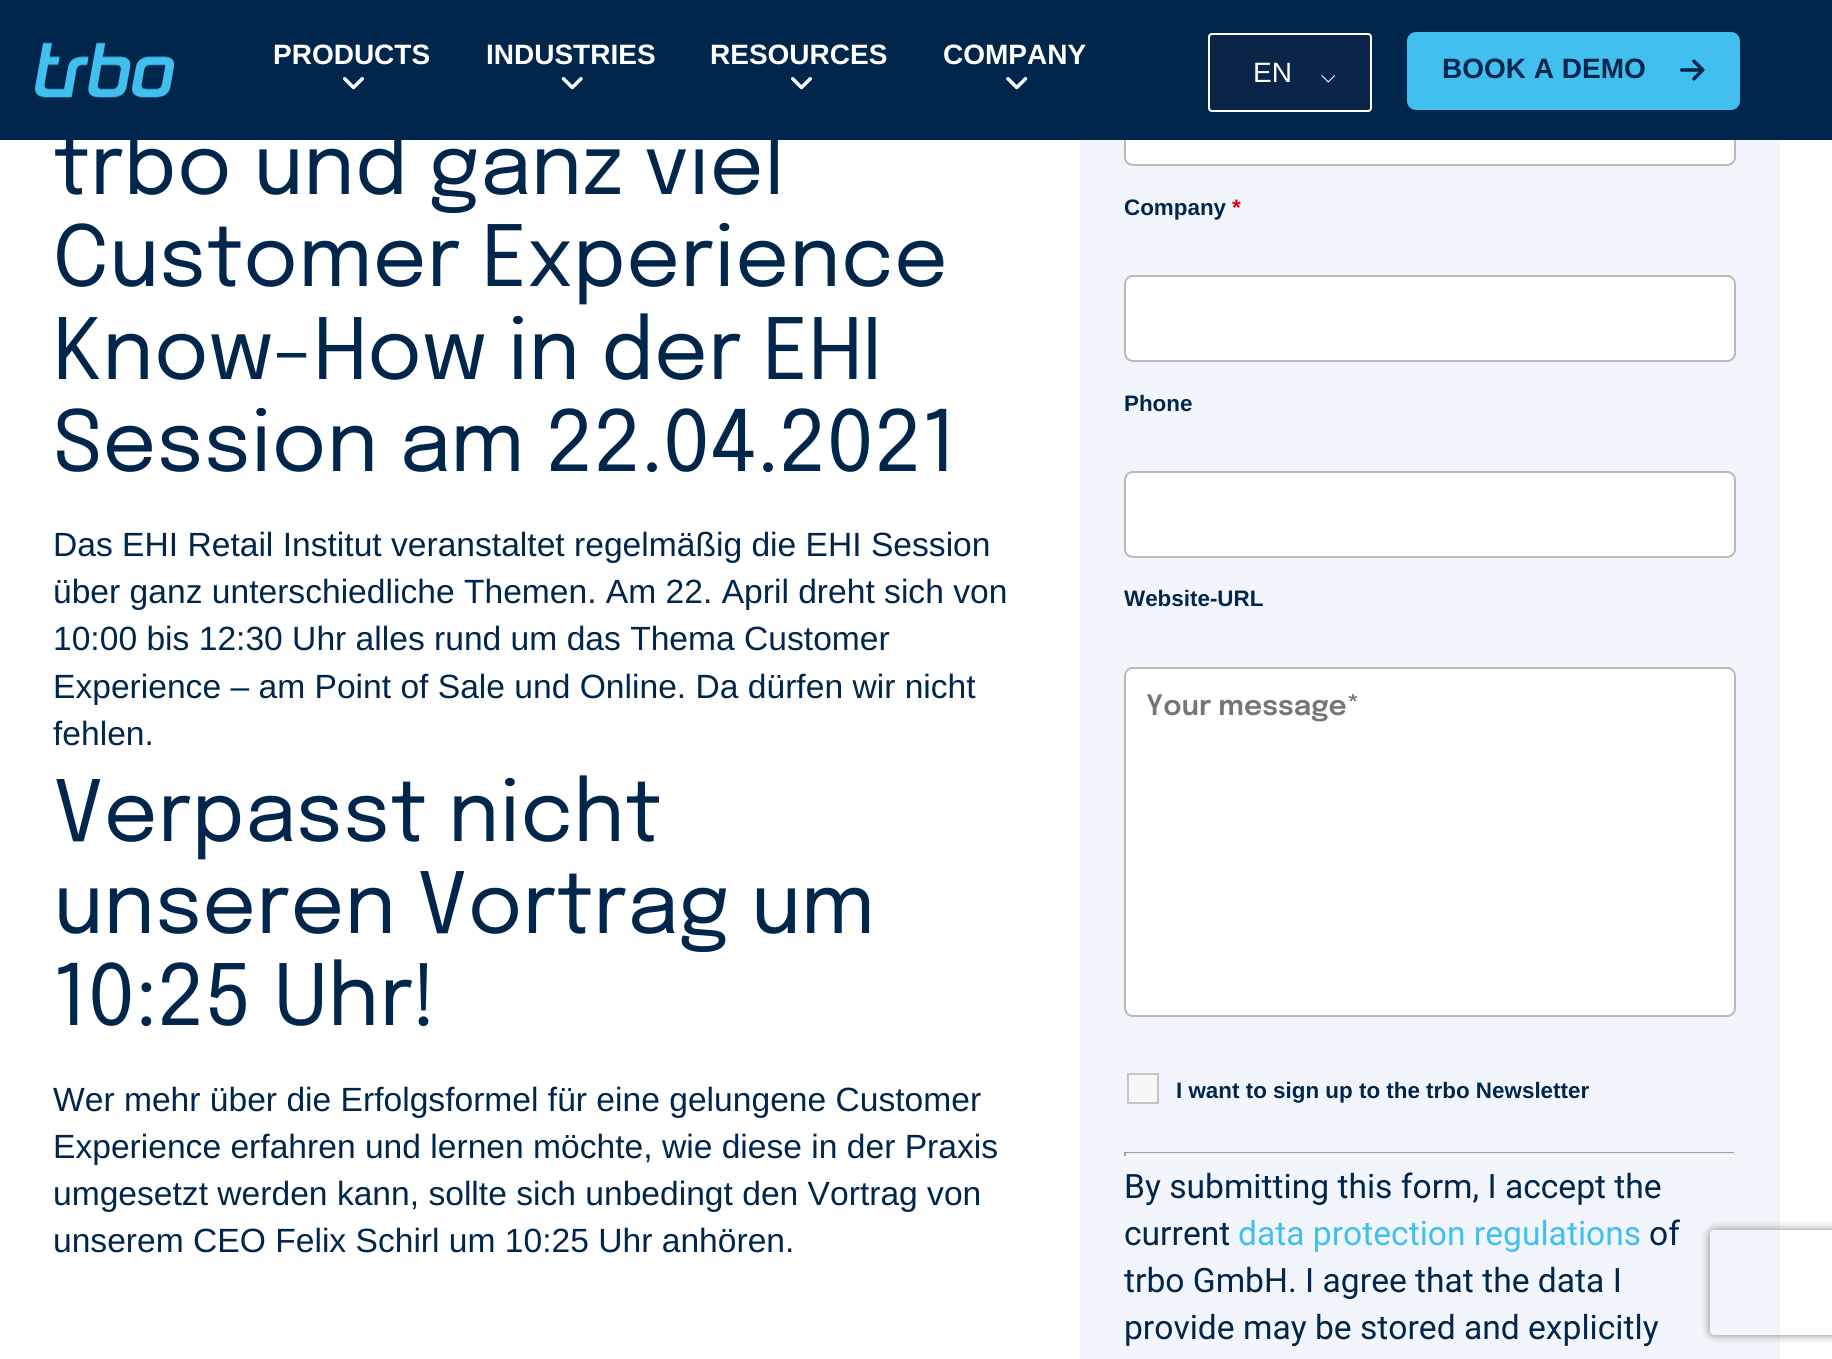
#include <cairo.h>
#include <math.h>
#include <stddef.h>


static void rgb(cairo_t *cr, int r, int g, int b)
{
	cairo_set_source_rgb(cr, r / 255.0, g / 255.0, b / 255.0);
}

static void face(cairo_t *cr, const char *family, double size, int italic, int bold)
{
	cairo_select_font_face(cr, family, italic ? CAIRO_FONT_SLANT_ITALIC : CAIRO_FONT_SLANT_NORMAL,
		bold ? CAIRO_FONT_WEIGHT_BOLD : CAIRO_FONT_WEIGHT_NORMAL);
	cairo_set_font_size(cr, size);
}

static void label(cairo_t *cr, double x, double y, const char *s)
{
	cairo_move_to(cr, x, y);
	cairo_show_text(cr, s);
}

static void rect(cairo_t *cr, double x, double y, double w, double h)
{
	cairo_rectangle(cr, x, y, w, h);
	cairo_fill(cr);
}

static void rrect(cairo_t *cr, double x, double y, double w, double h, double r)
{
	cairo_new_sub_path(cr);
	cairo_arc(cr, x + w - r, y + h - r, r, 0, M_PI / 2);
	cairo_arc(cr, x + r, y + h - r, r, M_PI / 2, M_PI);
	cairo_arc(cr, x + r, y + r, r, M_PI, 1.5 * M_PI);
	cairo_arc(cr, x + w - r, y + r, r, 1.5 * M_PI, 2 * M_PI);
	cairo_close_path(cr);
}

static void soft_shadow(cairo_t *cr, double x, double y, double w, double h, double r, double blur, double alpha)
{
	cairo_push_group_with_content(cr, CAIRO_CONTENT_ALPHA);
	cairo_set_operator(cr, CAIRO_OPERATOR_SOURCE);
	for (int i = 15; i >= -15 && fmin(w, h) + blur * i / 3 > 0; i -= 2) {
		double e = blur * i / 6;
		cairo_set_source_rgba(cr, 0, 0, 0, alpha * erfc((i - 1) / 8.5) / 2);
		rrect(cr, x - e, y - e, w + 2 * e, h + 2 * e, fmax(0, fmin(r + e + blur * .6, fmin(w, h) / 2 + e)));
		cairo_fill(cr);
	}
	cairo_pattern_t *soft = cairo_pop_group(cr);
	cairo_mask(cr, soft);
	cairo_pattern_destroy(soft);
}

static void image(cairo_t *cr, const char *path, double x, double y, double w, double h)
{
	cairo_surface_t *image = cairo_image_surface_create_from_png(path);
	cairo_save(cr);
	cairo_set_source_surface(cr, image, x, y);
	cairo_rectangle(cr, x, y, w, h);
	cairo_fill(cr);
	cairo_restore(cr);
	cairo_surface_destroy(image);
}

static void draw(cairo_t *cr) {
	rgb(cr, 255, 255, 255);
	cairo_paint(cr);
	rgb(cr, 243, 245, 252);
	rect(cr, 1080, 140, 700, 1219);
	rgb(cr, 255, 255, 255);
	rrect(cr, 1125, 80, 610, 85, 8);
	cairo_fill_preserve(cr);
	rgb(cr, 186, 186, 186);
	cairo_stroke(cr);
	rgb(cr, 0, 38, 76);
	rect(cr, 0, 0, 1832, 140);
	image(cr, "image0.png", 35, 42, 140, 56);
	face(cr, "Liberation Sans", 28, 0, 1);
	rgb(cr, 255, 255, 255);
	label(cr, 273, 64, "PRODUCTS");
	image(cr, "image1.png", 343, 77, 21, 13);
	label(cr, 486, 64, "INDUSTRIES");
	image(cr, "image2.png", 561, 77, 22, 13);
	label(cr, 710, 64, "RESOURCES");
	image(cr, "image1.png", 791, 77, 21, 13);
	label(cr, 943, 64, "COMPANY");
	image(cr, "image3.png", 1006, 77, 22, 13);
	rgb(cr, 11, 37, 73);
	rrect(cr, 1208, 33, 164, 79, 4);
	cairo_fill(cr);
	image(cr, "image4.png", 1321, 75, 14, 8);
	rrect(cr, 1209, 34, 162, 77, 3);
	rgb(cr, 255, 255, 255);
	cairo_stroke(cr);
	face(cr, "Liberation Sans", 28, 0, 0);
	label(cr, 1253, 82, "EN");
	rgb(cr, 65, 192, 240);
	rrect(cr, 1407, 32, 333, 78, 9);
	cairo_fill(cr);
	face(cr, "Liberation Sans", 28, 0, 1);
	rgb(cr, 0, 38, 76);
	label(cr, 1442, 78, "BOOK A DEMO");
	image(cr, "image5.png", 1680, 59, 25, 22);
	face(cr, "Epilogue", 84, 0, 0);
	label(cr, 53, 194, "trbo und ganz viel");
	label(cr, 53, 286, "Customer Experience");
	label(cr, 53, 379, "Know-How in der EHI");
	label(cr, 53, 471, "Session am 22.04.2021");
	face(cr, "Liberation Sans", 33.6, 0, 0);
	label(cr, 53, 556, "Das EHI Retail Institut veranstaltet regelmäßig die EHI Session");
	label(cr, 53, 603, "über ganz unterschiedliche Themen. Am 22. April dreht sich von");
	label(cr, 53, 650, "10:00 bis 12:30 Uhr alles rund um das Thema Customer");
	label(cr, 53, 698, "Experience – am Point of Sale und Online. Da dürfen wir nicht");
	label(cr, 53, 745, "fehlen.");
	face(cr, "Epilogue", 84, 0, 0);
	label(cr, 53, 841, "Verpasst nicht");
	label(cr, 53, 933, "unseren Vortrag um");
	label(cr, 53, 1025, "10:25 Uhr!");
	face(cr, "Liberation Sans", 33.6, 0, 0);
	label(cr, 53, 1111, "Wer mehr über die Erfolgsformel für eine gelungene Customer");
	label(cr, 53, 1158, "Experience erfahren und lernen möchte, wie diese in der Praxis");
	label(cr, 53, 1205, "umgesetzt werden kann, sollte sich unbedingt den Vortrag von");
	label(cr, 53, 1252, "unserem CEO Felix Schirl um 10:25 Uhr anhören.");
	face(cr, "Liberation Sans", 22.4, 0, 1);
	label(cr, 1124, 215, "Company");
	rgb(cr, 227, 0, 0);
	label(cr, 1232, 215, "*");
	rgb(cr, 255, 255, 255);
	rrect(cr, 1125, 276, 610, 85, 8);
	cairo_fill_preserve(cr);
	rgb(cr, 186, 186, 186);
	cairo_stroke(cr);
	rgb(cr, 0, 38, 76);
	label(cr, 1124, 411, "Phone");
	rgb(cr, 255, 255, 255);
	rrect(cr, 1125, 472, 610, 85, 8);
	cairo_fill_preserve(cr);
	rgb(cr, 186, 186, 186);
	cairo_stroke(cr);
	rgb(cr, 0, 38, 76);
	label(cr, 1124, 606, "Website-URL");
	rgb(cr, 255, 255, 255);
	rrect(cr, 1125, 668, 610, 348, 8);
	cairo_fill_preserve(cr);
	rgb(cr, 186, 186, 186);
	cairo_stroke(cr);
	face(cr, "Epilogue SemiBold", 28, 0, 0);
	rgb(cr, 117, 117, 117);
	label(cr, 1146, 715, "Your message*");
	rgb(cr, 247, 247, 247);
	cairo_rectangle(cr, 1128, 1074, 30, 29);
	cairo_fill_preserve(cr);
	rgb(cr, 196, 196, 196);
	cairo_stroke(cr);
	face(cr, "Liberation Sans", 22.4, 0, 1);
	rgb(cr, 0, 38, 76);
	label(cr, 1176, 1098, "I want to sign up to the trbo Newsletter");
	rgb(cr, 255, 255, 255);
	rect(cr, 1124, 1155, 612, 1);
	rgb(cr, 159, 159, 159);
	rect(cr, 1124, 1152, 612, 1);
	rgb(cr, 238, 238, 238);
	rect(cr, 1734, 1152, 2, 4);
	rect(cr, 1124, 1153, 612, 2);
	rgb(cr, 159, 159, 159);
	rect(cr, 1124, 1152, 2, 4);
	face(cr, "Roboto", 33.6, 0, 0);
	rgb(cr, 0, 38, 76);
	label(cr, 1124, 1198, "By submitting this form, I accept the");
	label(cr, 1124, 1245, "current");
	rgb(cr, 65, 192, 240);
	label(cr, 1238, 1245, "data protection regulations");
	rgb(cr, 0, 38, 76);
	label(cr, 1649, 1245, "of");
	label(cr, 1124, 1292, "trbo GmbH. I agree that the data I");
	label(cr, 1124, 1339, "provide may be stored and explicitly");
	cairo_save(cr);
	cairo_set_fill_rule(cr, CAIRO_FILL_RULE_EVEN_ODD);
	cairo_new_path(cr);
	cairo_move_to(cr, 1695, 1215);
	cairo_line_to(cr, 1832, 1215);
	cairo_line_to(cr, 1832, 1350);
	cairo_line_to(cr, 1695, 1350);
	cairo_close_path(cr);
	cairo_move_to(cr, 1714, 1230);
	cairo_line_to(cr, 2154, 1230);
	cairo_curve_to(cr, 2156, 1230, 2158, 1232, 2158, 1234);
	cairo_line_to(cr, 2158, 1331);
	cairo_curve_to(cr, 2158, 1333, 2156, 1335, 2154, 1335);
	cairo_line_to(cr, 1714, 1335);
	cairo_curve_to(cr, 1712, 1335, 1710, 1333, 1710, 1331);
	cairo_line_to(cr, 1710, 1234);
	cairo_curve_to(cr, 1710, 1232, 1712, 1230, 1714, 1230);
	cairo_close_path(cr);
	cairo_clip(cr);
	rgb(cr, 128, 128, 128);
	soft_shadow(cr, 1710, 1230, 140, 105, 4, 4.5, 1);
	cairo_restore(cr);
}

int main(void) {
	cairo_surface_t *surface = cairo_image_surface_create(CAIRO_FORMAT_RGB24, 1832, 1359);
	cairo_t *cr = cairo_create(surface);
	cairo_font_options_t *options = cairo_font_options_create();
	cairo_font_options_set_hint_metrics(options, CAIRO_HINT_METRICS_OFF);
	cairo_font_options_set_hint_style(options, CAIRO_HINT_STYLE_NONE);
	cairo_set_font_options(cr, options);
	cairo_set_miter_limit(cr, 4);
	draw(cr);
	cairo_surface_write_to_png(surface, "render.png");
	cairo_font_options_destroy(options);
	cairo_destroy(cr);
	cairo_surface_destroy(surface);
	return 0;
}
